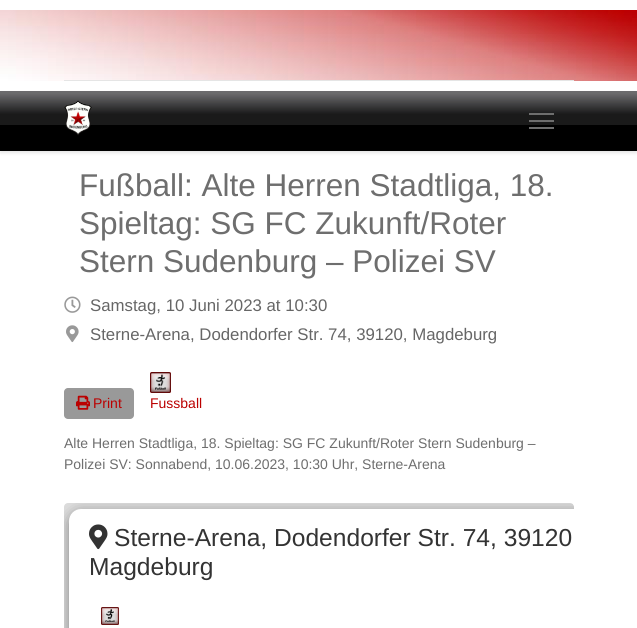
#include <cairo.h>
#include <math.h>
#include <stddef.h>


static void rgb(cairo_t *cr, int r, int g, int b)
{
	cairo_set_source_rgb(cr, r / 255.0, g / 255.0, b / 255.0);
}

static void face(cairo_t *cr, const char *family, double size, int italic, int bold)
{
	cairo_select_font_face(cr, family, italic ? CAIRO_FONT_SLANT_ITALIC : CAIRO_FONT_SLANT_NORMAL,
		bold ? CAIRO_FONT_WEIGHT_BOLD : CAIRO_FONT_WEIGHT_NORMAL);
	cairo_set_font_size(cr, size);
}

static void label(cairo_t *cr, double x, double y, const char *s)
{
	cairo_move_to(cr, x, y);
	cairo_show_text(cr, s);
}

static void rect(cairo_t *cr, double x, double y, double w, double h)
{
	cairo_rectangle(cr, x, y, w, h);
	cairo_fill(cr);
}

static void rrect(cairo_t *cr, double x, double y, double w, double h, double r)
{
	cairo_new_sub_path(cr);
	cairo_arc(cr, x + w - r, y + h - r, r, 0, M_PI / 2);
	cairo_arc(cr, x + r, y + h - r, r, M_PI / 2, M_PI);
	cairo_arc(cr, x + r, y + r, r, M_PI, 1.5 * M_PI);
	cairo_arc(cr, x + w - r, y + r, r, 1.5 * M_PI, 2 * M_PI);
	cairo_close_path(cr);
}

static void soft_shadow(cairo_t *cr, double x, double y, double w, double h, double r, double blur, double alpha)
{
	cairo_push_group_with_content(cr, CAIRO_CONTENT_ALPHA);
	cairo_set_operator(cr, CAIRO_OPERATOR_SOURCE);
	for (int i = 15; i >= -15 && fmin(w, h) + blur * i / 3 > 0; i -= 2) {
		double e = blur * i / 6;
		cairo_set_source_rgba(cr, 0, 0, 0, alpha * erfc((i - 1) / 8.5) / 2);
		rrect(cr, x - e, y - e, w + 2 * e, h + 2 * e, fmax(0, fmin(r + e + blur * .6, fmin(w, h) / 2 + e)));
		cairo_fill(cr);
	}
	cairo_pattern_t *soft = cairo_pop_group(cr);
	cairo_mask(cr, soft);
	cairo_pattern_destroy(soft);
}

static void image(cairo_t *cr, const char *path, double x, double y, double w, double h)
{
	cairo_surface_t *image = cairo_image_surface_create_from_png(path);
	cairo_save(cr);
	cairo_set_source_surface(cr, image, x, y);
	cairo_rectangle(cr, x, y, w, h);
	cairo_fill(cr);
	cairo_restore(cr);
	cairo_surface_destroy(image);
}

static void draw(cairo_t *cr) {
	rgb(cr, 255, 255, 255);
	cairo_paint(cr);
	image(cr, "image0.png", 0, 10, 637, 71);
	rgb(cr, 229, 229, 229);
	rect(cr, 64, 80, 510, 1);
	rgb(cr, 0, 0, 0);
	soft_shadow(cr, 0, 93, 637, 60, 0, 1.5, 0.1);
	rgb(cr, 0, 0, 0);
	rect(cr, 0, 125, 637, 26);
	image(cr, "image1.png", 0, 91, 637, 34);
	image(cr, "image2.png", 64, 100, 28, 36);
	rgb(cr, 110, 110, 110);
	rect(cr, 529, 113, 25, 2);
	rect(cr, 529, 120, 25, 2);
	rect(cr, 529, 127, 25, 2);
	face(cr, "Liberation Sans", 31.5, 0, 0);
	label(cr, 79, 196, "Fußball: Alte Herren Stadtliga, 18.");
	label(cr, 79, 234, "Spieltag: SG FC Zukunft/Roter");
	label(cr, 79, 272, "Stern Sudenburg – Polizei SV");
	image(cr, "image3.png", 64, 296, 17, 17);
	face(cr, "Liberation Sans", 16.8, 0, 0);
	rgb(cr, 102, 102, 102);
	label(cr, 90, 311, "Samstag, 10 Juni 2023 at 10:30");
	image(cr, "image4.png", 66, 325, 13, 18);
	label(cr, 90, 340, "Sterne-Arena, Dodendorfer Str. 74, 39120, Magdeburg");
	rgb(cr, 153, 153, 153);
	rrect(cr, 64, 388, 70, 31, 4);
	cairo_fill(cr);
	image(cr, "image5.png", 76, 395, 14, 15);
	face(cr, "Liberation Sans", 14, 0, 0);
	rgb(cr, 187, 0, 0);
	label(cr, 93, 408, "Print");
	image(cr, "image6.png", 150, 372, 21, 21);
	label(cr, 150, 408, "Fussball");
	rgb(cr, 110, 110, 110);
	label(cr, 64, 448, "Alte Herren Stadtliga, 18. Spieltag: SG FC Zukunft/Roter Stern Sudenburg –");
	label(cr, 64, 469, "Polizei SV: Sonnabend, 10.06.2023, 10:30 Uhr, Sterne-Arena");
	rgb(cr, 221, 221, 221);
	rrect(cr, 64, 503, 510, 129, 4);
	cairo_fill(cr);
	cairo_save(cr);
	rrect(cr, 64, 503, 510, 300, 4);
	cairo_clip(cr);
	rgb(cr, 0, 0, 0);
	soft_shadow(cr, 69, 512, 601, 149, 12, 7, 0.4);
	cairo_restore(cr);
	rgb(cr, 255, 255, 255);
	cairo_new_path(cr);
	cairo_move_to(cr, 81, 509);
	cairo_line_to(cr, 574, 509);
	cairo_line_to(cr, 574, 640);
	cairo_line_to(cr, 81, 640);
	cairo_curve_to(cr, 74.5, 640, 69, 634.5, 69, 628);
	cairo_line_to(cr, 69, 521);
	cairo_curve_to(cr, 69, 514.5, 74.5, 509, 81, 509);
	cairo_close_path(cr);
	cairo_fill(cr);
	image(cr, "image7.png", 89, 524, 19, 26);
	face(cr, "Liberation Sans", 24.6, 0, 0);
	rgb(cr, 51, 51, 51);
	label(cr, 114, 546, "Sterne-Arena, Dodendorfer Str. 74, 39120");
	label(cr, 89, 575, "Magdeburg");
	image(cr, "image8.png", 101, 607, 18, 18);
}

int main(void) {
	cairo_surface_t *surface = cairo_image_surface_create(CAIRO_FORMAT_RGB24, 637, 628);
	cairo_t *cr = cairo_create(surface);
	cairo_font_options_t *options = cairo_font_options_create();
	cairo_font_options_set_hint_metrics(options, CAIRO_HINT_METRICS_OFF);
	cairo_font_options_set_hint_style(options, CAIRO_HINT_STYLE_NONE);
	cairo_set_font_options(cr, options);
	cairo_set_miter_limit(cr, 4);
	draw(cr);
	cairo_surface_write_to_png(surface, "render.png");
	cairo_font_options_destroy(options);
	cairo_destroy(cr);
	cairo_surface_destroy(surface);
	return 0;
}
